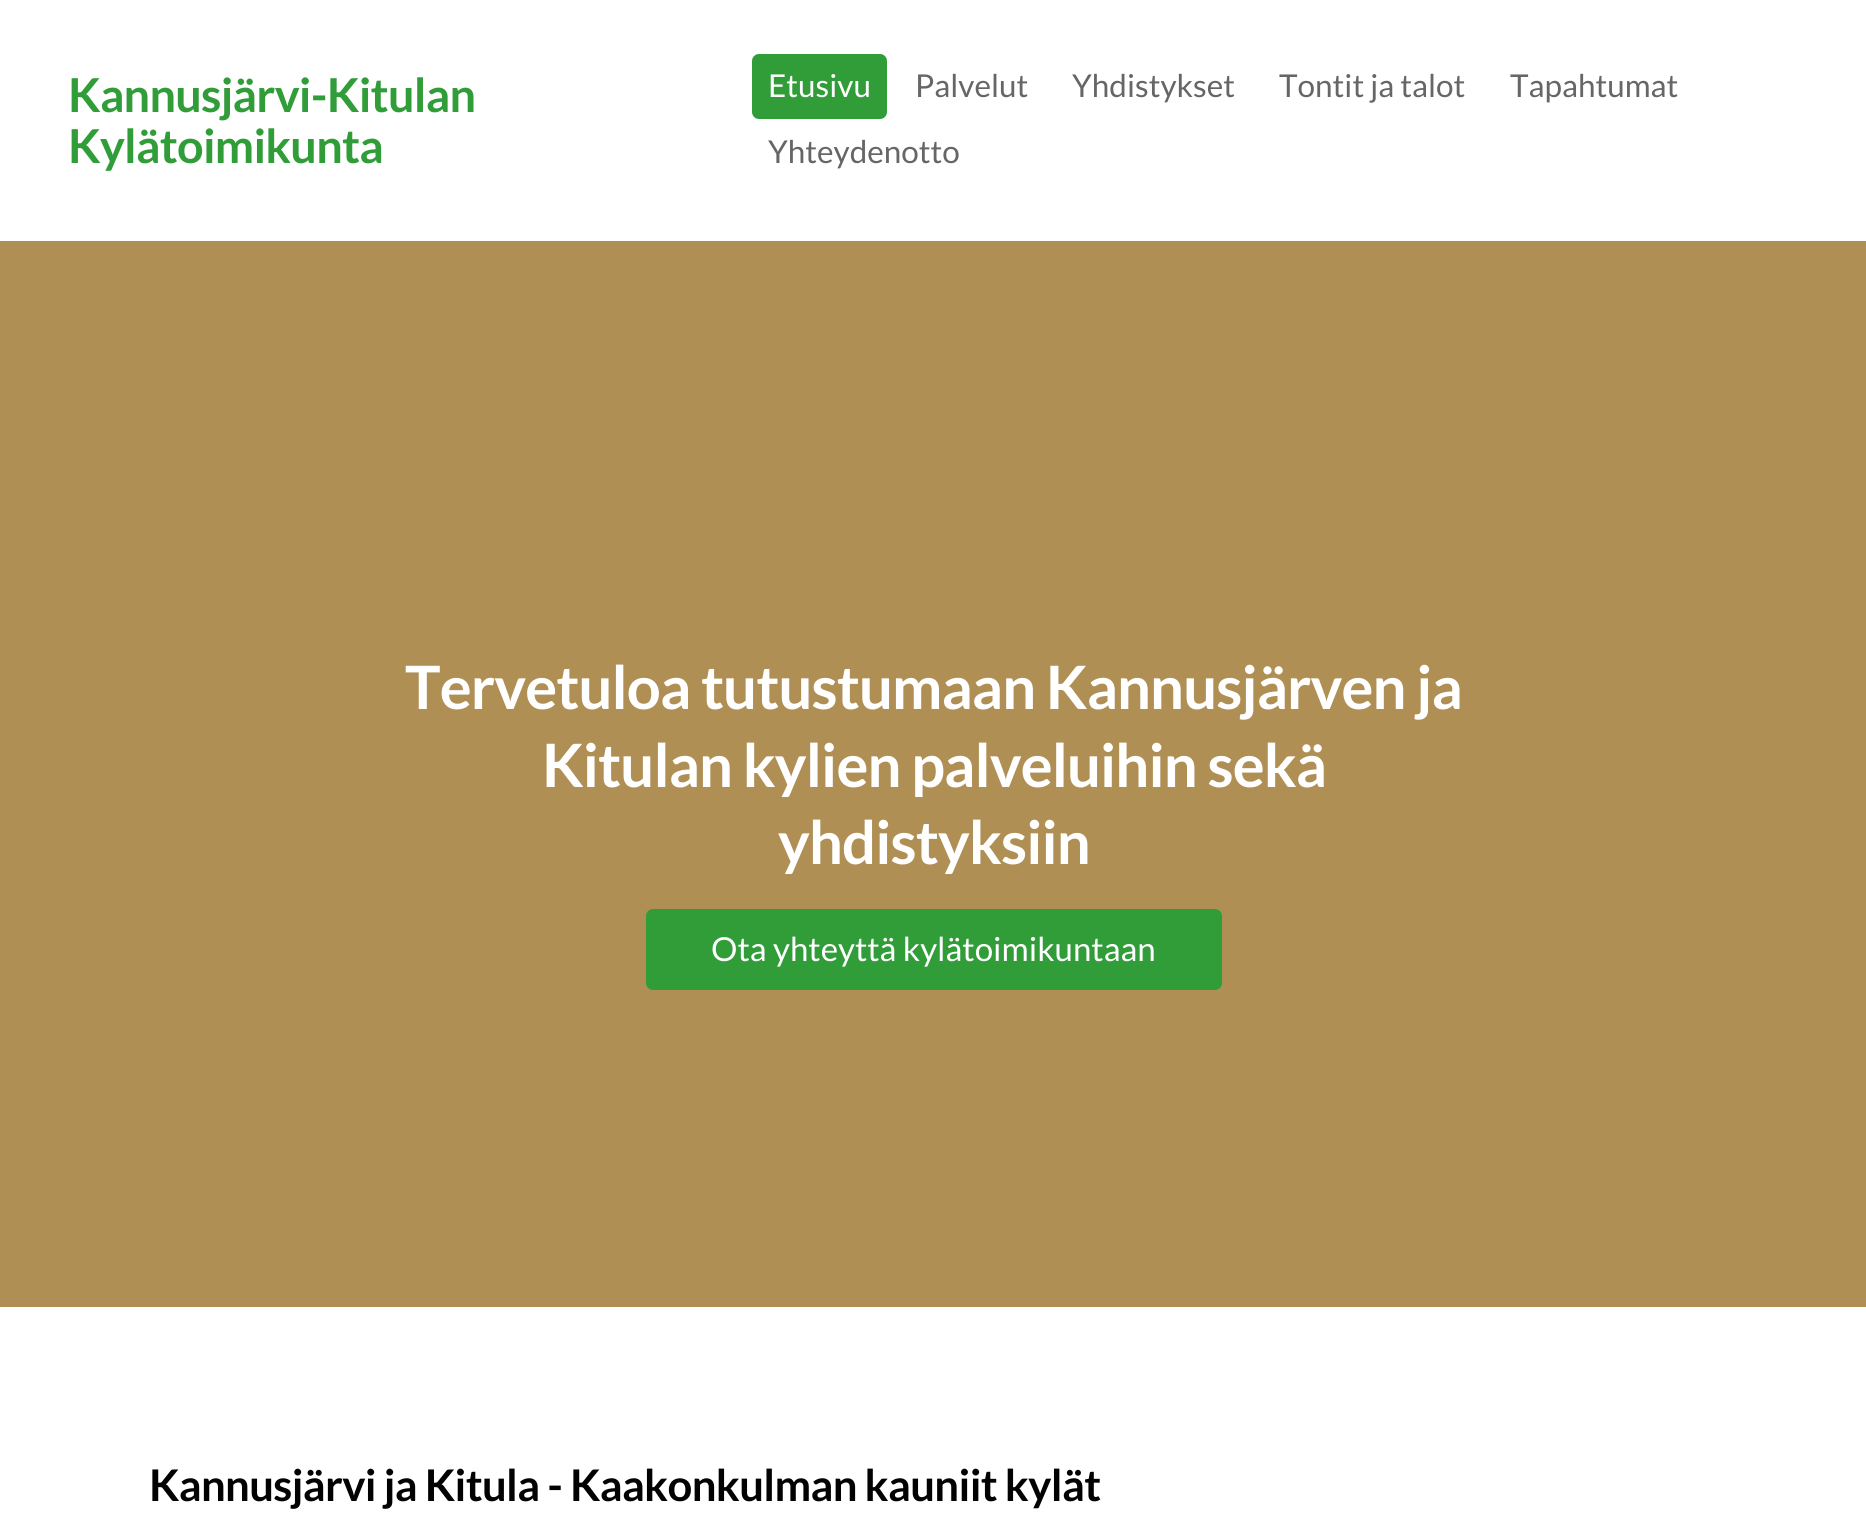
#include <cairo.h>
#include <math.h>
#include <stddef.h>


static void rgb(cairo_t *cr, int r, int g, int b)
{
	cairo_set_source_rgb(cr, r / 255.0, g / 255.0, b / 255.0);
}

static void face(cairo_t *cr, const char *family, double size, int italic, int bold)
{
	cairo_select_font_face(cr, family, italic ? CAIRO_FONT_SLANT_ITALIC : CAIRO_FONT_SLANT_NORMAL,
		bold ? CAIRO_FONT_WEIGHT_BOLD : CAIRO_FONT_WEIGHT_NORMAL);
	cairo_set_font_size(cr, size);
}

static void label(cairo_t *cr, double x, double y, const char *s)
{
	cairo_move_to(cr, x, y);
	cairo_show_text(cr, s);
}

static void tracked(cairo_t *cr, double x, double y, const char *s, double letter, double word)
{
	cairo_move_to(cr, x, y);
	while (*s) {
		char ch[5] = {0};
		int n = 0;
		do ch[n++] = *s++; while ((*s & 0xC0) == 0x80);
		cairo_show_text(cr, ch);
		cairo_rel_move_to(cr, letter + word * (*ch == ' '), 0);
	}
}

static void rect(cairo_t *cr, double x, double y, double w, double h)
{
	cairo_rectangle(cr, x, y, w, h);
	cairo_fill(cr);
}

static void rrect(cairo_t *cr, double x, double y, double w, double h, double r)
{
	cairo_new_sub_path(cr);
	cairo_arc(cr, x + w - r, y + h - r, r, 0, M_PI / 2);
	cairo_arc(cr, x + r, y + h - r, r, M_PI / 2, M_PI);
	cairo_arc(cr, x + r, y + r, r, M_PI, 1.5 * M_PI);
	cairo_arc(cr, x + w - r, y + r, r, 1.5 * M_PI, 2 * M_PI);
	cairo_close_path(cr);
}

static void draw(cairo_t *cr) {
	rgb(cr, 255, 255, 255);
	cairo_paint(cr);
	face(cr, "Lato", 46.75, 0, 1);
	rgb(cr, 49, 157, 57);
	tracked(cr, 68, 112, "Kannusjärvi-Kitulan", -0.75, 0);
	tracked(cr, 68, 163, "Kylätoimikunta", -0.75, 0);
	rrect(cr, 752, 54, 135, 65, 7);
	cairo_fill(cr);
	face(cr, "Lato", 31.5, 0, 0);
	rgb(cr, 255, 255, 255);
	label(cr, 768, 97, "Etusivu");
	rgb(cr, 102, 102, 102);
	label(cr, 915, 97, "Palvelut");
	label(cr, 1072, 97, "Yhdistykset");
	label(cr, 1279, 97, "Tontit ja talot");
	label(cr, 1510, 97, "Tapahtumat");
	label(cr, 768, 163, "Yhteydenotto");
	rgb(cr, 176, 143, 85);
	rect(cr, 0, 241, 1866, 1066);
	face(cr, "Lato", 59.75, 0, 1);
	rgb(cr, 255, 255, 255);
	tracked(cr, 405, 709, "Tervetuloa tutustumaan Kannusjärven ja", -0.9, 0);
	tracked(cr, 542, 787, "Kitulan kylien palveluihin sekä", -0.9, 0);
	tracked(cr, 778, 864, "yhdistyksiin", -0.9, 0);
	rgb(cr, 49, 157, 57);
	rrect(cr, 646, 909, 576, 81, 7);
	cairo_fill(cr);
	face(cr, "Lato", 33.1, 0, 0);
	rgb(cr, 255, 255, 255);
	label(cr, 711, 961, "Ota yhteyttä kylätoimikuntaan");
	face(cr, "Lato", 43.6, 0, 1);
	rgb(cr, 2, 2, 2);
	tracked(cr, 149, 1501, "Kannusjärvi ja Kitula - Kaakonkulman kauniit kylät", -0.65, 0);
}

int main(void) {
	cairo_surface_t *surface = cairo_image_surface_create(CAIRO_FORMAT_RGB24, 1866, 1513);
	cairo_t *cr = cairo_create(surface);
	cairo_font_options_t *options = cairo_font_options_create();
	cairo_font_options_set_hint_metrics(options, CAIRO_HINT_METRICS_OFF);
	cairo_font_options_set_hint_style(options, CAIRO_HINT_STYLE_NONE);
	cairo_set_font_options(cr, options);
	cairo_set_miter_limit(cr, 4);
	draw(cr);
	cairo_surface_write_to_png(surface, "render.png");
	cairo_font_options_destroy(options);
	cairo_destroy(cr);
	cairo_surface_destroy(surface);
	return 0;
}
